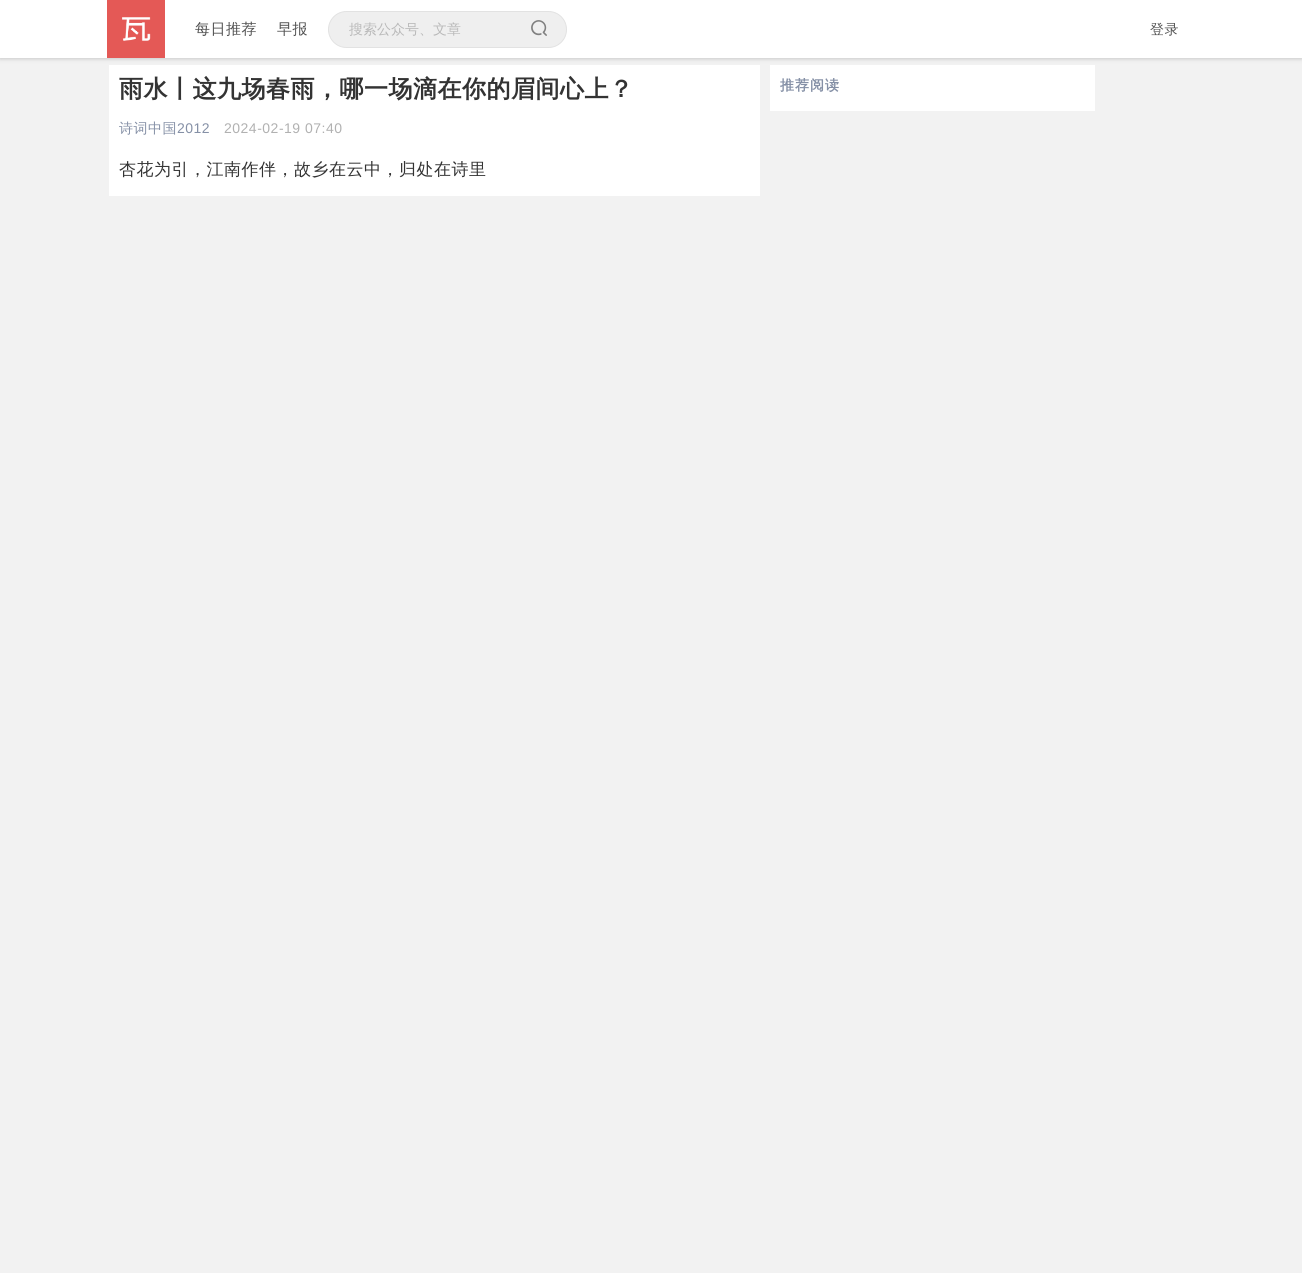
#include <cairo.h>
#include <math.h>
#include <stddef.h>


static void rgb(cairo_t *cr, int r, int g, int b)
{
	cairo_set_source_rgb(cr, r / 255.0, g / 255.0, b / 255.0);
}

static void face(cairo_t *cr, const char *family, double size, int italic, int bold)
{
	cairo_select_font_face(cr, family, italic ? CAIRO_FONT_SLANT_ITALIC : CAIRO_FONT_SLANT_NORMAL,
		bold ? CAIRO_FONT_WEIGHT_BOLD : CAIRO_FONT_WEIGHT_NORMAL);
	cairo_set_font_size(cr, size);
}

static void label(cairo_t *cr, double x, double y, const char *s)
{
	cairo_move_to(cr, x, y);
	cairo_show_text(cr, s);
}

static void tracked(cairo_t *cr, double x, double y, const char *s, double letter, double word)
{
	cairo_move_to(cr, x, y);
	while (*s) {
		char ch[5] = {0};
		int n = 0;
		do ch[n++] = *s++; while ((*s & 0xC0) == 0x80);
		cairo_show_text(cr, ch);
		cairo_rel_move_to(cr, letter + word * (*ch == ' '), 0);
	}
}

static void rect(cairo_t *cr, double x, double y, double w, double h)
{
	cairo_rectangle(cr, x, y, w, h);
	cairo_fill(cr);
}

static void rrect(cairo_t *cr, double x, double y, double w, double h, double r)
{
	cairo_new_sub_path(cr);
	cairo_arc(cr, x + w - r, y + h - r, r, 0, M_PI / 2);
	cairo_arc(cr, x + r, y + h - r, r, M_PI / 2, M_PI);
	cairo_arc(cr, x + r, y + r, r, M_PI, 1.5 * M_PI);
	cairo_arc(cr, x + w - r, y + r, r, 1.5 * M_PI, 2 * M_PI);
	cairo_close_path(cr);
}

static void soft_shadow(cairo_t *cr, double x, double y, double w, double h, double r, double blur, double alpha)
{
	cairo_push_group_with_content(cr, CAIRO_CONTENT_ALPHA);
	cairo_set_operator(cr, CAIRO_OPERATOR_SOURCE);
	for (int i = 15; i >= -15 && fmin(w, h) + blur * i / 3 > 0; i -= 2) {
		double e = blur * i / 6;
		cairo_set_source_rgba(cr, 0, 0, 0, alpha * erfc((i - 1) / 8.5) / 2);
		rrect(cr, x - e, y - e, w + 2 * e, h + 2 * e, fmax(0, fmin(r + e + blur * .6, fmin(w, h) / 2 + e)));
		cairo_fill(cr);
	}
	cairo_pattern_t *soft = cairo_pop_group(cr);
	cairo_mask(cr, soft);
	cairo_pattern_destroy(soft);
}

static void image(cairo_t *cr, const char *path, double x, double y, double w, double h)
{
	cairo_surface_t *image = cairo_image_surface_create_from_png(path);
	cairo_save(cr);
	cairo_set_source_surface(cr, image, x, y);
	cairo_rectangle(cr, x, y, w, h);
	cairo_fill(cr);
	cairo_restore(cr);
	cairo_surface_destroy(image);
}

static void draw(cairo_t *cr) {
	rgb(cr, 242, 242, 242);
	cairo_paint(cr);
	rgb(cr, 255, 255, 255);
	rect(cr, 109, 65, 651, 131);
	rect(cr, 770, 65, 325, 46);
	rgb(cr, 156, 156, 156);
	soft_shadow(cr, 0, 1, 1302, 58, 0, 2, 0.5);
	rgb(cr, 255, 255, 255);
	rect(cr, 0, 0, 1302, 58);
	rgb(cr, 228, 89, 86);
	rect(cr, 107, 0, 58, 58);
	image(cr, "image0.png", 122, 17, 29, 24);
	face(cr, "WenQuanYi Zen Hei Medium", 15, 0, 0);
	rgb(cr, 82, 82, 82);
	tracked(cr, 195, 34, "每日推荐", 0.5, 0);
	tracked(cr, 277, 34, "早报", 0.5, 0);
	rgb(cr, 239, 239, 239);
	rrect(cr, 328.5, 11.5, 238, 36, 18);
	cairo_fill_preserve(cr);
	rgb(cr, 226, 226, 226);
	cairo_set_line_width(cr, 1);
	cairo_stroke(cr);
	face(cr, "WenQuanYi Zen Hei Medium", 14, 0, 0);
	rgb(cr, 185, 185, 185);
	label(cr, 349, 34, "搜索公众号、文章");
	image(cr, "image1.png", 531, 20, 16, 16);
	rgb(cr, 82, 82, 82);
	tracked(cr, 1150, 34, "登录", 0.5, 0);
	face(cr, "WenQuanYi Zen Hei", 24, 0, 1);
	rgb(cr, 51, 51, 51);
	tracked(cr, 119, 97, "雨水丨这九场春雨，哪一场滴在你的眉间心上？", 0.5, 0);
	face(cr, "WenQuanYi Zen Hei Medium", 14, 0, 0);
	rgb(cr, 133, 144, 166);
	tracked(cr, 119, 133, "诗词中国", 0.5, 0);
	face(cr, "Liberation Sans", 14, 0, 0);
	tracked(cr, 177, 133, "2012", 0.5, 0);
	rgb(cr, 177, 177, 177);
	tracked(cr, 224, 133, "2024-02-19 07:40", 0.5, 0);
	face(cr, "WenQuanYi Zen Hei Medium", 17, 0, 0);
	rgb(cr, 51, 51, 51);
	tracked(cr, 119, 175, "杏花为引，江南作伴，故乡在云中，归处在诗里", 0.5, 0);
	face(cr, "WenQuanYi Zen Hei", 14, 0, 1);
	rgb(cr, 133, 144, 166);
	tracked(cr, 780, 90, "推荐阅读", 1, 0);
}

int main(void) {
	cairo_surface_t *surface = cairo_image_surface_create(CAIRO_FORMAT_RGB24, 1302, 1273);
	cairo_t *cr = cairo_create(surface);
	cairo_font_options_t *options = cairo_font_options_create();
	cairo_font_options_set_hint_metrics(options, CAIRO_HINT_METRICS_OFF);
	cairo_font_options_set_hint_style(options, CAIRO_HINT_STYLE_NONE);
	cairo_set_font_options(cr, options);
	cairo_set_miter_limit(cr, 4);
	draw(cr);
	cairo_surface_write_to_png(surface, "render.png");
	cairo_font_options_destroy(options);
	cairo_destroy(cr);
	cairo_surface_destroy(surface);
	return 0;
}
